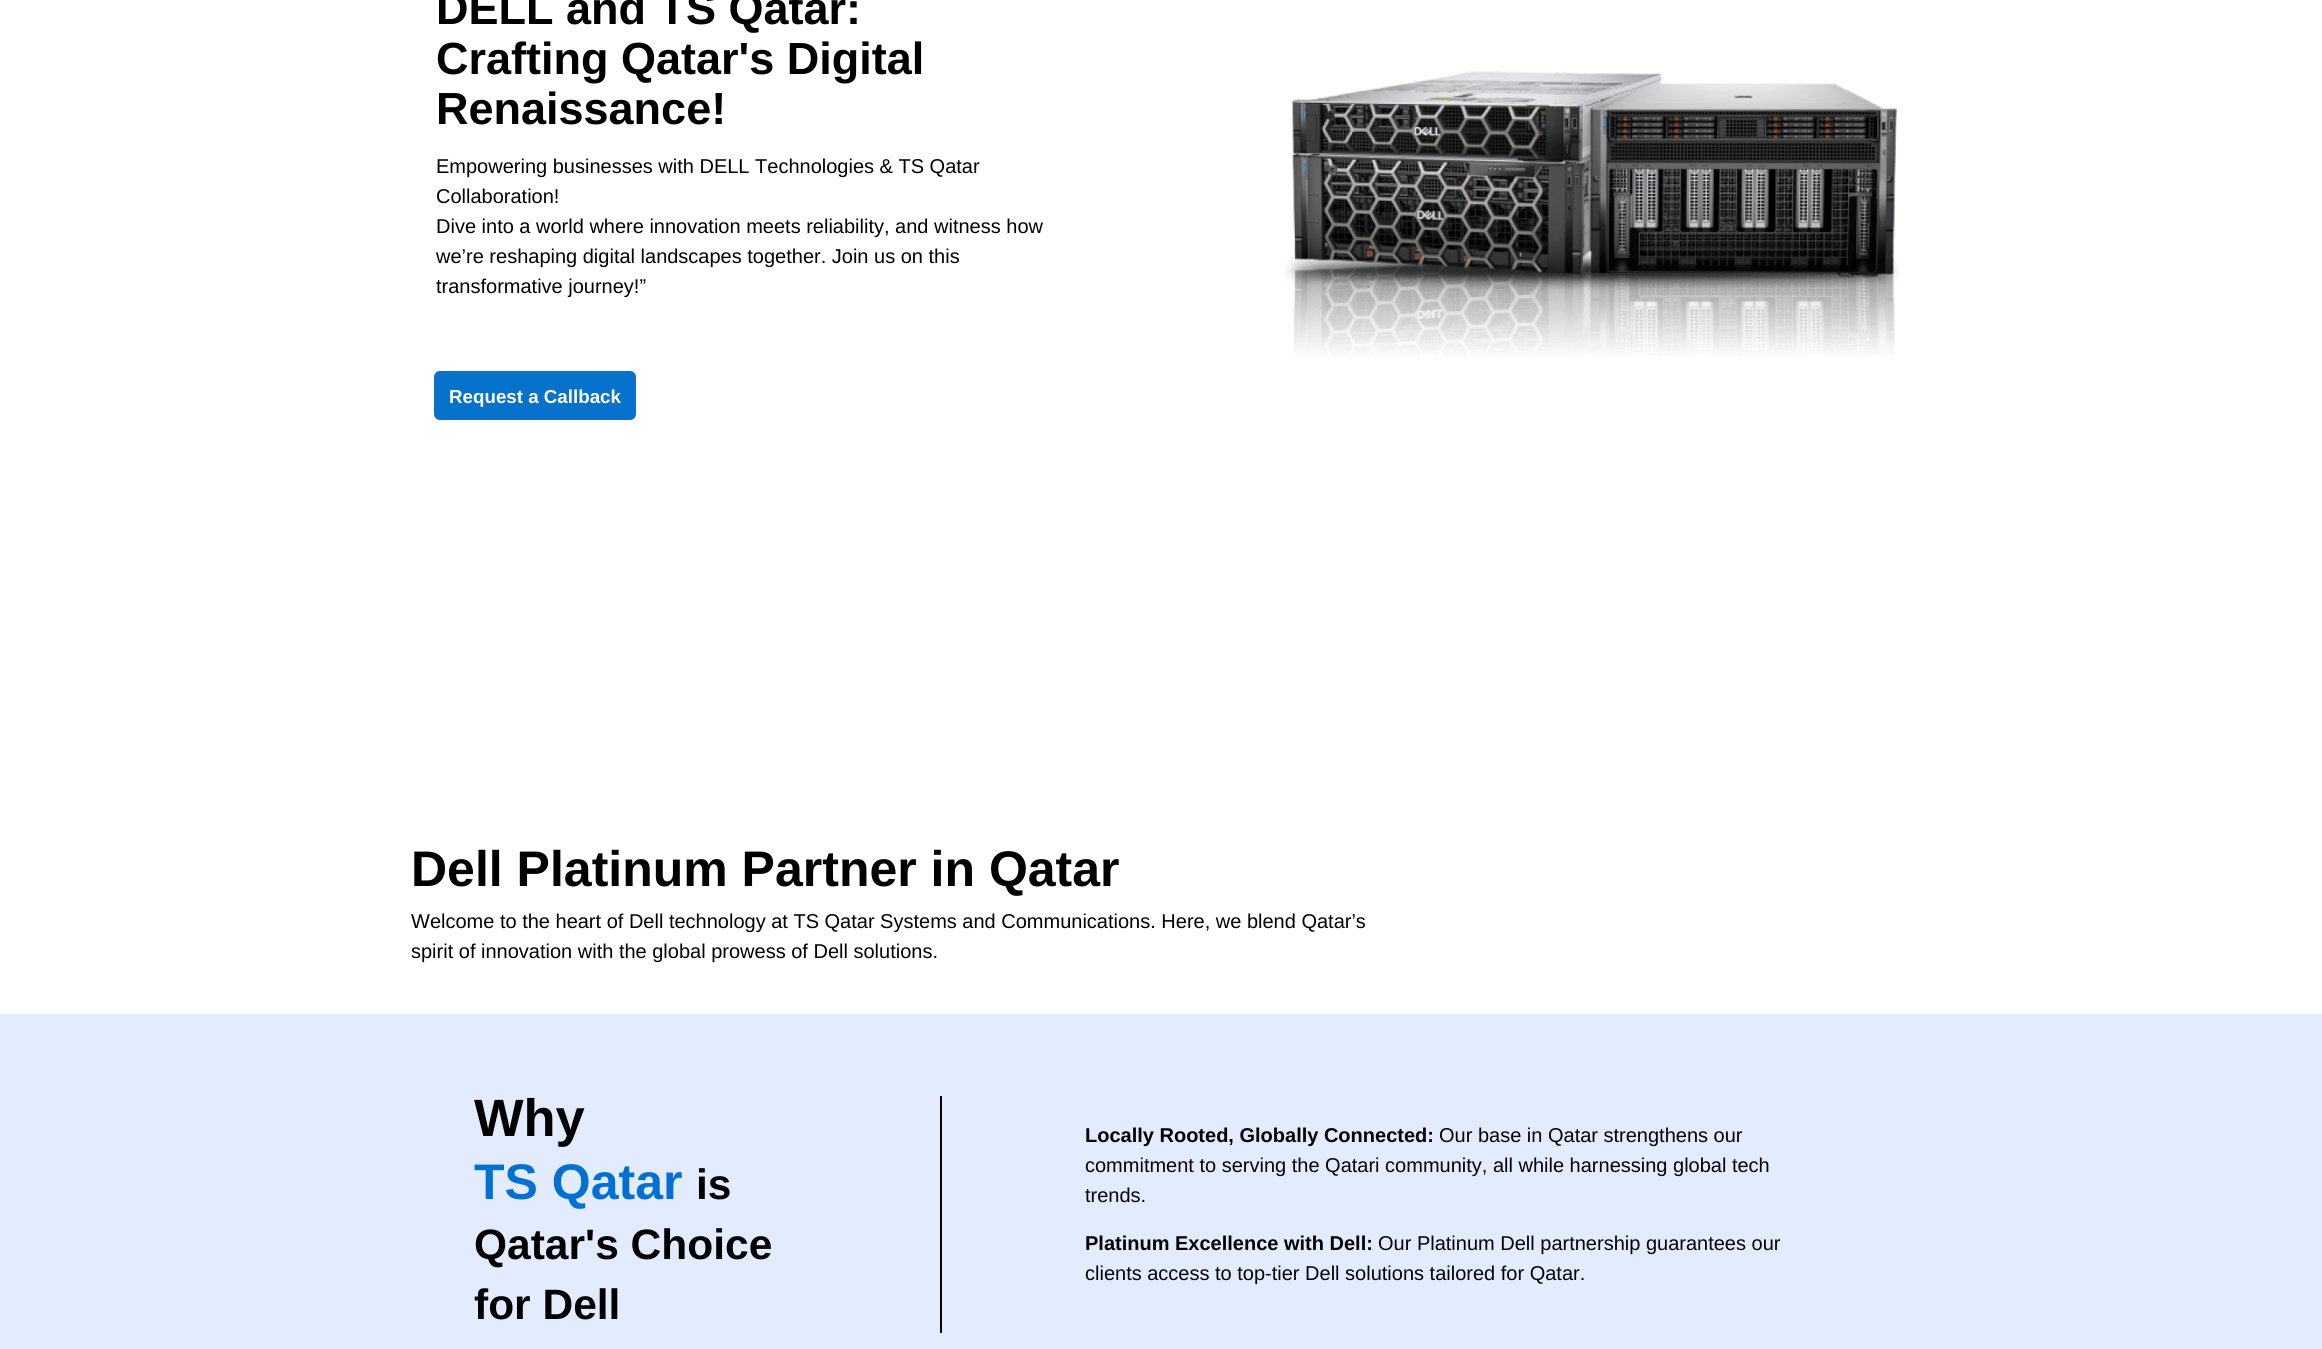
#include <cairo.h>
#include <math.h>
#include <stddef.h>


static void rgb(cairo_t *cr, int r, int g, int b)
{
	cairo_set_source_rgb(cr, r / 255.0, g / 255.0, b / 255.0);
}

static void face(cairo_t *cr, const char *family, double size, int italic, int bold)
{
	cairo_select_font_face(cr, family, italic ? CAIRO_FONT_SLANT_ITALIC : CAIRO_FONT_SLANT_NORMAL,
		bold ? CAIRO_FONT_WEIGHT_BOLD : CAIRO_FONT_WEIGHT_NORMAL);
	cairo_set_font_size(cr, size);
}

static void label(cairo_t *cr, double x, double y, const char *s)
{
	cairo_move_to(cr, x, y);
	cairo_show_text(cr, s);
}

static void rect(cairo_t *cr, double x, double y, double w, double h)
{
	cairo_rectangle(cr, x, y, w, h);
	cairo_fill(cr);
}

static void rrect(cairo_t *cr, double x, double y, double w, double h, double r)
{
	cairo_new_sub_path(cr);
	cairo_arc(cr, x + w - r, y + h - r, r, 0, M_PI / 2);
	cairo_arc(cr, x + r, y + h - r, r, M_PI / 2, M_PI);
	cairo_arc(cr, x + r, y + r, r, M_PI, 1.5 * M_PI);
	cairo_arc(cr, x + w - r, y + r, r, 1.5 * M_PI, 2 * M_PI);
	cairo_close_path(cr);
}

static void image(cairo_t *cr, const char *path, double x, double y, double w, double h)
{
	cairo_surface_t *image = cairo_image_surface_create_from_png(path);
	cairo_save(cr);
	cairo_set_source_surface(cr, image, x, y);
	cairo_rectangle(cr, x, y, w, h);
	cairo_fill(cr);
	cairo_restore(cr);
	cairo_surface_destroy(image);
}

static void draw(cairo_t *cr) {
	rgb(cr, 255, 255, 255);
	cairo_paint(cr);
	face(cr, "Liberation Sans", 45, 0, 1);
	rgb(cr, 0, 0, 0);
	label(cr, 436, 24, "DELL and TS Qatar:");
	label(cr, 436, 74, "Crafting Qatar's Digital");
	label(cr, 436, 124, "Renaissance!");
	face(cr, "Liberation Sans", 20, 0, 0);
	label(cr, 436, 173, "Empowering businesses with DELL Technologies & TS Qatar");
	label(cr, 436, 203, "Collaboration!");
	label(cr, 436, 233, "Dive into a world where innovation meets reliability, and witness how");
	label(cr, 436, 263, "we’re reshaping digital landscapes together. Join us on this");
	label(cr, 436, 293, "transformative journey!”");
	image(cr, "image0.png", 1284, 71, 616, 285);
	rgb(cr, 6, 114, 203);
	rrect(cr, 434, 371, 202, 49, 6);
	cairo_fill(cr);
	face(cr, "Liberation Sans", 18.75, 0, 1);
	rgb(cr, 255, 255, 255);
	label(cr, 449, 403, "Request a Callback");
	face(cr, "Liberation Sans", 50, 0, 1);
	rgb(cr, 0, 0, 0);
	label(cr, 411, 886, "Dell Platinum Partner in Qatar");
	face(cr, "Liberation Sans", 20, 0, 0);
	label(cr, 411, 928, "Welcome to the heart of Dell technology at TS Qatar Systems and Communications. Here, we blend Qatar’s");
	label(cr, 411, 958, "spirit of innovation with the global prowess of Dell solutions.");
	rgb(cr, 227, 236, 255);
	rect(cr, 0, 1014, 2322, 335);
	face(cr, "Liberation Sans", 52.5, 0, 1);
	rgb(cr, 0, 0, 0);
	label(cr, 474, 1136, "Why");
	face(cr, "Liberation Sans", 50, 0, 1);
	rgb(cr, 0, 112, 210);
	label(cr, 474, 1199, "TS Qatar");
	face(cr, "Liberation Sans", 42.5, 0, 1);
	rgb(cr, 0, 0, 0);
	label(cr, 696, 1199, "is");
	label(cr, 474, 1259, "Qatar's Choice");
	label(cr, 474, 1319, "for Dell");
	rect(cr, 940, 1096, 2, 237);
	face(cr, "Liberation Sans", 20, 0, 1);
	label(cr, 1085, 1142, "Locally Rooted, Globally Connected:");
	face(cr, "Liberation Sans", 20, 0, 0);
	label(cr, 1439, 1142, "Our base in Qatar strengthens our");
	label(cr, 1085, 1172, "commitment to serving the Qatari community, all while harnessing global tech");
	label(cr, 1085, 1202, "trends.");
	face(cr, "Liberation Sans", 20, 0, 1);
	label(cr, 1085, 1250, "Platinum Excellence with Dell:");
	face(cr, "Liberation Sans", 20, 0, 0);
	label(cr, 1378, 1250, "Our Platinum Dell partnership guarantees our");
	label(cr, 1085, 1280, "clients access to top-tier Dell solutions tailored for Qatar.");
}

int main(void) {
	cairo_surface_t *surface = cairo_image_surface_create(CAIRO_FORMAT_RGB24, 2322, 1349);
	cairo_t *cr = cairo_create(surface);
	cairo_font_options_t *options = cairo_font_options_create();
	cairo_font_options_set_hint_metrics(options, CAIRO_HINT_METRICS_OFF);
	cairo_font_options_set_hint_style(options, CAIRO_HINT_STYLE_NONE);
	cairo_set_font_options(cr, options);
	cairo_set_miter_limit(cr, 4);
	draw(cr);
	cairo_surface_write_to_png(surface, "render.png");
	cairo_font_options_destroy(options);
	cairo_destroy(cr);
	cairo_surface_destroy(surface);
	return 0;
}
